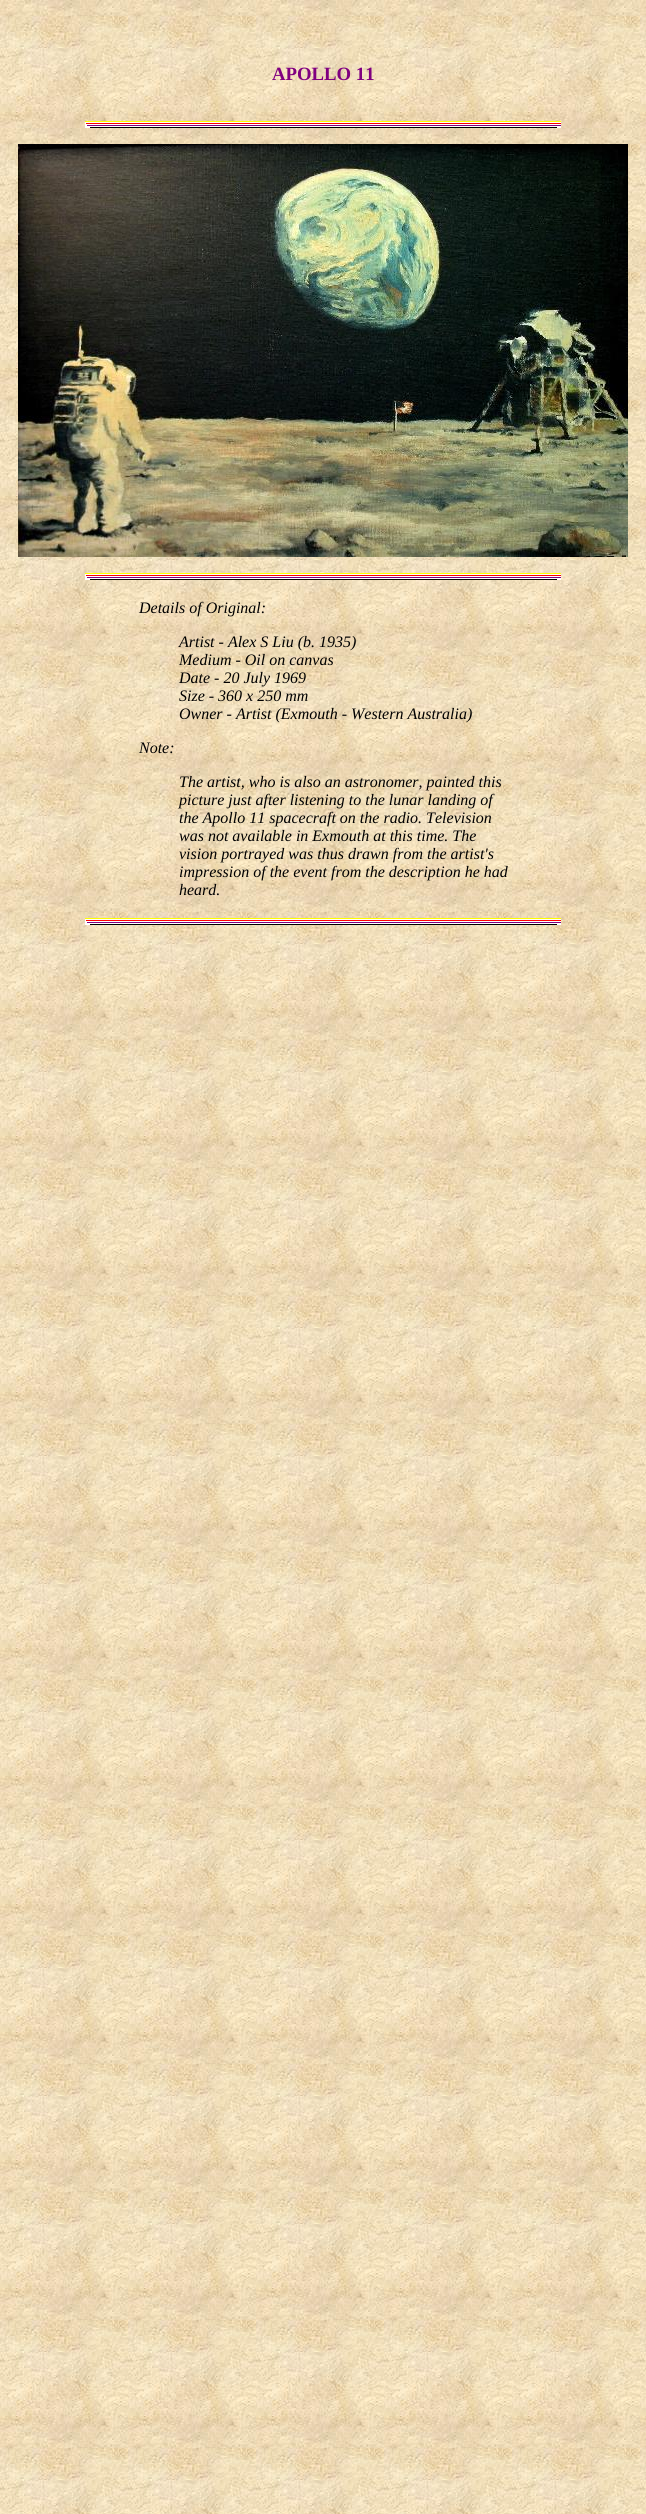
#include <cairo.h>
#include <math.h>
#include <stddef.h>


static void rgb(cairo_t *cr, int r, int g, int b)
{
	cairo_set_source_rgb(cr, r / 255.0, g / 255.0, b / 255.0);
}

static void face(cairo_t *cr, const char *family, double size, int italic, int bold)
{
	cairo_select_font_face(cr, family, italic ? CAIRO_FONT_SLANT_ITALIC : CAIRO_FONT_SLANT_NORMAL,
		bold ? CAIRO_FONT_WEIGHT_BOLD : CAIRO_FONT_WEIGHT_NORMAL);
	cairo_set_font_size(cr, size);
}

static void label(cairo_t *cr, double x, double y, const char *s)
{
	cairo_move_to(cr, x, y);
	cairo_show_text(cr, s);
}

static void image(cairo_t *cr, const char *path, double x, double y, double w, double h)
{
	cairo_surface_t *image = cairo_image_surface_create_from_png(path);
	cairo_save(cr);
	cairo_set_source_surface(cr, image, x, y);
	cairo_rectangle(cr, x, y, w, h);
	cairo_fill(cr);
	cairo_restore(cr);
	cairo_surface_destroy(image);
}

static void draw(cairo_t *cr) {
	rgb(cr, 255, 255, 255);
	cairo_paint(cr);
	image(cr, "image0.png", 0, 0, 646, 2514);
	face(cr, "Liberation Serif", 18.75, 0, 1);
	rgb(cr, 128, 0, 128);
	label(cr, 272, 80, "APOLLO 11");
	image(cr, "image1.png", 85, 121, 476, 7);
	image(cr, "image2.png", 18, 144, 610, 413);
	image(cr, "image1.png", 85, 573, 476, 7);
	face(cr, "Liberation Serif", 16, 1, 0);
	rgb(cr, 0, 0, 0);
	label(cr, 139, 613, "Details of Original:");
	label(cr, 179, 647, "Artist - Alex S Liu (b. 1935)");
	label(cr, 179, 665, "Medium - Oil on canvas");
	label(cr, 179, 683, "Date - 20 July 1969");
	label(cr, 179, 701, "Size - 360 x 250 mm");
	label(cr, 179, 719, "Owner - Artist (Exmouth - Western Australia)");
	label(cr, 139, 753, "Note:");
	label(cr, 179, 787, "The artist, who is also an astronomer, painted this");
	label(cr, 179, 805, "picture just after listening to the lunar landing of");
	label(cr, 179, 823, "the Apollo 11 spacecraft on the radio. Television");
	label(cr, 179, 841, "was not available in Exmouth at this time. The");
	label(cr, 179, 859, "vision portrayed was thus drawn from the artist's");
	label(cr, 179, 877, "impression of the event from the description he had");
	label(cr, 179, 895, "heard.");
	image(cr, "image1.png", 85, 918, 476, 7);
}

int main(void) {
	cairo_surface_t *surface = cairo_image_surface_create(CAIRO_FORMAT_RGB24, 646, 2514);
	cairo_t *cr = cairo_create(surface);
	cairo_font_options_t *options = cairo_font_options_create();
	cairo_font_options_set_hint_metrics(options, CAIRO_HINT_METRICS_OFF);
	cairo_font_options_set_hint_style(options, CAIRO_HINT_STYLE_NONE);
	cairo_set_font_options(cr, options);
	cairo_set_miter_limit(cr, 4);
	draw(cr);
	cairo_surface_write_to_png(surface, "render.png");
	cairo_font_options_destroy(options);
	cairo_destroy(cr);
	cairo_surface_destroy(surface);
	return 0;
}
